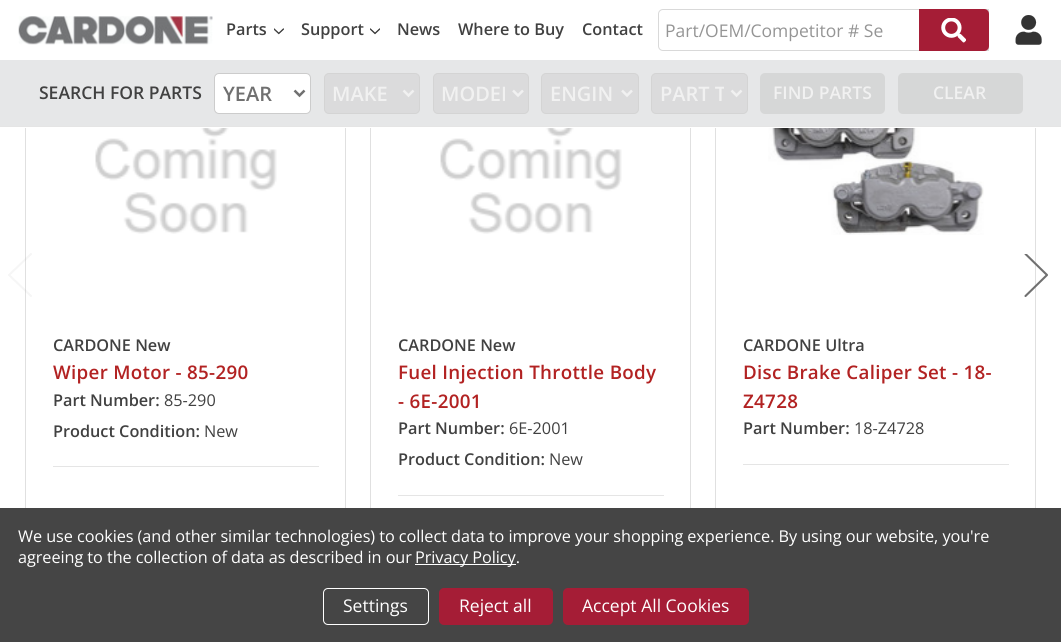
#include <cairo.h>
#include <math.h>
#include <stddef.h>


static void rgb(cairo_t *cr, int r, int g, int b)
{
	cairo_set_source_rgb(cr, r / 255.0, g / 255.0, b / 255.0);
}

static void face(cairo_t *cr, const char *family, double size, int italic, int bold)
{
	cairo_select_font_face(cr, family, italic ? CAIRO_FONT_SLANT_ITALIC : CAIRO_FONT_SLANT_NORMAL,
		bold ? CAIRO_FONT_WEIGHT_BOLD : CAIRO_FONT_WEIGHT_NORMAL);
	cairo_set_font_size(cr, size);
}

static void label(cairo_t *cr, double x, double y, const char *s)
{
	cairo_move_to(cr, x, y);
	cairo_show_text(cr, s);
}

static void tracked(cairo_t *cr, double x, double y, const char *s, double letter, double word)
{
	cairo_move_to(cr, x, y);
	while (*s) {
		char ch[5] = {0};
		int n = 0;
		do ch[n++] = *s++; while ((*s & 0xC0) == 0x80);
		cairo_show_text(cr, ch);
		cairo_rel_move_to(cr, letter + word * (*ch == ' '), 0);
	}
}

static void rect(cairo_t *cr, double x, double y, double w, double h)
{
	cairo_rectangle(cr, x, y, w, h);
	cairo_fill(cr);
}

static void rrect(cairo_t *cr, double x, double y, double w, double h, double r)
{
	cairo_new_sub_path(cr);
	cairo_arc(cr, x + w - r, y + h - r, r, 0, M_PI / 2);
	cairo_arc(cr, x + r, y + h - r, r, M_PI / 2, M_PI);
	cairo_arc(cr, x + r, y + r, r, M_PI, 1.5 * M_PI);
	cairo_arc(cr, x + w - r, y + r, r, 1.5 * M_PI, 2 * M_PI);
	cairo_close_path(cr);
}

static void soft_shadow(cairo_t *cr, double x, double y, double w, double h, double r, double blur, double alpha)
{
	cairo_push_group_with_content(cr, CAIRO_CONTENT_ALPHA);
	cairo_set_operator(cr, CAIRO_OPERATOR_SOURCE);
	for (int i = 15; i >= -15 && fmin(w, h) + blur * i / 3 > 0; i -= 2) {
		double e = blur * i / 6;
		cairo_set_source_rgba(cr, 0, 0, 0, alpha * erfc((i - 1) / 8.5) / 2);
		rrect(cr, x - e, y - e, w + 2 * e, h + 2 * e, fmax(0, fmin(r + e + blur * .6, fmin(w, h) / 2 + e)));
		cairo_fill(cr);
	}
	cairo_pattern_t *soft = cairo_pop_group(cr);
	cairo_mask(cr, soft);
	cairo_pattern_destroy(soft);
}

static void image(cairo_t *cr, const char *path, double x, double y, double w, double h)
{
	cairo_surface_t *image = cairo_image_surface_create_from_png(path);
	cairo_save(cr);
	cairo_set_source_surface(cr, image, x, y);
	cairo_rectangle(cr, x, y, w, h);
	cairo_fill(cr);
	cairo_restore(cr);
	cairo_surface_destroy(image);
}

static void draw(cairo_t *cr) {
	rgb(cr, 255, 255, 255);
	cairo_paint(cr);
	rgb(cr, 0, 0, 0);
	soft_shadow(cr, 26, 26, 319, 537, 0, 0.5, 0.5);
	soft_shadow(cr, 371, 26, 319, 537, 0, 0.5, 0.5);
	soft_shadow(cr, 716, 26, 319, 537, 0, 0.5, 0.5);
	rgb(cr, 255, 255, 255);
	rect(cr, 25, 25, 1011, 103);
	rgb(cr, 229, 229, 229);
	rect(cr, 0, 126, 1061, 1);
	image(cr, "image0.png", 18, 16, 195, 29);
	face(cr, "Open Sans SemiBold", 16.25, 0, 0);
	rgb(cr, 65, 65, 65);
	label(cr, 226, 35, "Parts");
	image(cr, "image1.png", 274, 28, 10, 7);
	label(cr, 301, 35, "Support");
	image(cr, "image2.png", 370, 28, 10, 7);
	label(cr, 397, 35, "News");
	label(cr, 458, 35, "Where to Buy");
	label(cr, 582, 35, "Contact");
	cairo_new_path(cr);
	cairo_move_to(cr, 663, 9.5);
	cairo_line_to(cr, 988.5, 9.5);
	cairo_line_to(cr, 988.5, 50.5);
	cairo_line_to(cr, 663, 50.5);
	cairo_curve_to(cr, 660.5, 50.5, 658.5, 48.5, 658.5, 46);
	cairo_line_to(cr, 658.5, 14);
	cairo_curve_to(cr, 658.5, 11.5, 660.5, 9.5, 663, 9.5);
	cairo_close_path(cr);
	rgb(cr, 217, 217, 217);
	cairo_set_line_width(cr, 1);
	cairo_stroke(cr);
	face(cr, "Open Sans", 17.5, 0, 0);
	rgb(cr, 149, 149, 149);
	label(cr, 665, 37, "Part/OEM/Competitor # Se");
	rgb(cr, 165, 29, 54);
	cairo_new_path(cr);
	cairo_move_to(cr, 919, 9);
	cairo_line_to(cr, 984, 9);
	cairo_curve_to(cr, 987, 9, 989, 11, 989, 14);
	cairo_line_to(cr, 989, 46);
	cairo_curve_to(cr, 989, 49, 987, 51, 984, 51);
	cairo_line_to(cr, 919, 51);
	cairo_close_path(cr);
	cairo_fill(cr);
	image(cr, "image3.png", 941, 18, 25, 25);
	image(cr, "image4.png", 1015, 15, 27, 30);
	rgb(cr, 230, 231, 232);
	rect(cr, 0, 60, 1061, 66);
	face(cr, "Open Sans SemiBold", 17.5, 0, 0);
	rgb(cr, 65, 65, 65);
	label(cr, 39, 99, "SEARCH FOR PARTS");
	rgb(cr, 255, 255, 255);
	rrect(cr, 214.5, 73.5, 96, 40, 4.5);
	cairo_fill_preserve(cr);
	rgb(cr, 204, 204, 204);
	cairo_stroke(cr);
	cairo_new_path(cr);
	cairo_move_to(cr, 294.5, 90.5);
	cairo_line_to(cr, 299.5, 95.5);
	cairo_line_to(cr, 304.5, 90.5);
	rgb(cr, 112, 112, 112);
	cairo_set_line_width(cr, 2.5);
	cairo_stroke(cr);
	face(cr, "Open Sans SemiBold", 20, 0, 0);
	label(cr, 223, 101, "YEAR");
	rgb(cr, 219, 219, 220);
	rrect(cr, 324.5, 73.5, 95, 40, 4.5);
	cairo_fill_preserve(cr);
	rgb(cr, 212, 212, 212);
	cairo_set_line_width(cr, 1);
	cairo_stroke(cr);
	cairo_new_path(cr);
	cairo_move_to(cr, 403.5, 90.5);
	cairo_line_to(cr, 408.5, 95.5);
	cairo_line_to(cr, 413.5, 90.5);
	rgb(cr, 241, 241, 241);
	cairo_set_line_width(cr, 2.5);
	cairo_stroke(cr);
	label(cr, 332, 101, "MAKE");
	rgb(cr, 219, 219, 220);
	rrect(cr, 433.5, 73.5, 95, 40, 4.5);
	cairo_fill_preserve(cr);
	rgb(cr, 212, 212, 212);
	cairo_set_line_width(cr, 1);
	cairo_stroke(cr);
	cairo_new_path(cr);
	cairo_move_to(cr, 513, 90.5);
	cairo_line_to(cr, 518, 95.5);
	cairo_line_to(cr, 523, 90.5);
	rgb(cr, 241, 241, 241);
	cairo_set_line_width(cr, 2.5);
	cairo_stroke(cr);
	cairo_save(cr);
	cairo_rectangle(cr, 441, 78, 64, 30);
	cairo_clip(cr);
	label(cr, 441, 101, "MODEL");
	cairo_restore(cr);
	rgb(cr, 219, 219, 220);
	rrect(cr, 541.5, 73.5, 97, 40, 4.5);
	cairo_fill_preserve(cr);
	rgb(cr, 212, 212, 212);
	cairo_set_line_width(cr, 1);
	cairo_stroke(cr);
	cairo_new_path(cr);
	cairo_move_to(cr, 622, 90.5);
	cairo_line_to(cr, 627, 95.5);
	cairo_line_to(cr, 632, 90.5);
	rgb(cr, 241, 241, 241);
	cairo_set_line_width(cr, 2.5);
	cairo_stroke(cr);
	label(cr, 550, 101, "ENGIN");
	rgb(cr, 219, 219, 220);
	rrect(cr, 651.5, 73.5, 96, 40, 4.5);
	cairo_fill_preserve(cr);
	rgb(cr, 212, 212, 212);
	cairo_set_line_width(cr, 1);
	cairo_stroke(cr);
	cairo_new_path(cr);
	cairo_move_to(cr, 731.5, 90.5);
	cairo_line_to(cr, 736.5, 95.5);
	cairo_line_to(cr, 741.5, 90.5);
	rgb(cr, 241, 241, 241);
	cairo_set_line_width(cr, 2.5);
	cairo_stroke(cr);
	cairo_save(cr);
	cairo_rectangle(cr, 660, 78, 64, 30);
	cairo_clip(cr);
	label(cr, 660, 101, "PART T");
	cairo_restore(cr);
	rgb(cr, 214, 215, 215);
	rrect(cr, 760, 73, 125, 41, 5);
	cairo_fill(cr);
	face(cr, "Open Sans SemiBold", 17.5, 0, 0);
	rgb(cr, 241, 241, 241);
	label(cr, 773, 99, "FIND PARTS");
	rgb(cr, 214, 215, 215);
	rrect(cr, 898, 73, 125, 41, 5);
	cairo_fill(cr);
	rgb(cr, 241, 241, 241);
	label(cr, 933, 99, "CLEAR");
	rgb(cr, 255, 255, 255);
	rect(cr, 26, 128, 319, 380);
	cairo_new_path(cr);
	cairo_move_to(cr, 31, 254);
	cairo_line_to(cr, 9, 275);
	cairo_line_to(cr, 31, 296);
	cairo_set_source_rgba(cr, 0.439, 0.439, 0.439, 0.06);
	cairo_set_line_width(cr, 2.1);
	cairo_set_line_cap(cr, CAIRO_LINE_CAP_ROUND);
	cairo_set_line_join(cr, CAIRO_LINE_JOIN_ROUND);
	cairo_stroke(cr);
	rgb(cr, 255, 255, 255);
	rect(cr, 716, 128, 319, 380);
	cairo_save(cr);
	cairo_rectangle(cr, 1024, 254, 25, 44);
	cairo_clip(cr);
	cairo_new_path(cr);
	cairo_move_to(cr, 1025.5, 254);
	cairo_line_to(cr, 1047, 275);
	cairo_line_to(cr, 1025.5, 296);
	rgb(cr, 112, 112, 112);
	cairo_stroke(cr);
	cairo_restore(cr);
	image(cr, "image5.png", 95, 128, 182, 106);
	face(cr, "Open Sans SemiBold", 16.25, 0, 0);
	rgb(cr, 65, 65, 65);
	label(cr, 53, 351, "CARDONE New");
	face(cr, "Open Sans SemiBold", 18.75, 0, 0);
	rgb(cr, 178, 34, 34);
	tracked(cr, 53, 379, "Wiper Motor - 85-290", 0.3, 0);
	face(cr, "Open Sans SemiBold", 16.25, 0, 0);
	rgb(cr, 65, 65, 65);
	label(cr, 53, 406, "Part Number:");
	face(cr, "Open Sans", 16.25, 0, 0);
	label(cr, 164, 406, "85-290");
	face(cr, "Open Sans SemiBold", 16.25, 0, 0);
	label(cr, 53, 437, "Product Condition:");
	face(cr, "Open Sans", 16.25, 0, 0);
	label(cr, 204, 437, "New");
	rgb(cr, 229, 229, 229);
	rect(cr, 53, 466, 266, 1);
	rgb(cr, 255, 255, 255);
	rect(cr, 371, 128, 319, 380);
	image(cr, "image6.png", 440, 128, 182, 106);
	face(cr, "Open Sans SemiBold", 16.25, 0, 0);
	rgb(cr, 65, 65, 65);
	label(cr, 398, 351, "CARDONE New");
	face(cr, "Open Sans SemiBold", 18.75, 0, 0);
	rgb(cr, 178, 34, 34);
	tracked(cr, 398, 379, "Fuel Injection Throttle Body", 0.3, 0);
	tracked(cr, 398, 408, "- 6E-2001", 0.3, 0);
	face(cr, "Open Sans SemiBold", 16.25, 0, 0);
	rgb(cr, 65, 65, 65);
	label(cr, 398, 434, "Part Number:");
	face(cr, "Open Sans", 16.25, 0, 0);
	label(cr, 509, 434, "6E-2001");
	face(cr, "Open Sans SemiBold", 16.25, 0, 0);
	label(cr, 398, 465, "Product Condition:");
	face(cr, "Open Sans", 16.25, 0, 0);
	label(cr, 549, 465, "New");
	rgb(cr, 229, 229, 229);
	rect(cr, 398, 495, 266, 1);
	image(cr, "image7.png", 768, 128, 216, 107);
	face(cr, "Open Sans SemiBold", 16.25, 0, 0);
	rgb(cr, 65, 65, 65);
	label(cr, 743, 351, "CARDONE Ultra");
	face(cr, "Open Sans SemiBold", 18.75, 0, 0);
	rgb(cr, 178, 34, 34);
	tracked(cr, 743, 379, "Disc Brake Caliper Set - 18-", 0.3, 0);
	tracked(cr, 743, 408, "Z4728", 0.3, 0);
	face(cr, "Open Sans SemiBold", 16.25, 0, 0);
	rgb(cr, 65, 65, 65);
	label(cr, 743, 434, "Part Number:");
	face(cr, "Open Sans", 16.25, 0, 0);
	label(cr, 854, 434, "18-Z4728");
	rgb(cr, 229, 229, 229);
	rect(cr, 743, 464, 266, 1);
	rgb(cr, 69, 69, 69);
	rect(cr, 0, 508, 1061, 134);
	rgb(cr, 255, 255, 255);
	tracked(cr, 18, 542, "We use cookies (and other similar technologies) to collect data to improve your shopping experience. By using our website, you're", -0.06, 0);
	tracked(cr, 18, 563, "agreeing to the collection of data as described in our", -0.06, 0);
	rect(cr, 415, 564, 101, 1);
	tracked(cr, 415, 563, "Privacy Policy.", -0.06, 0);
	rrect(cr, 323.5, 588.5, 105, 36, 4.5);
	cairo_set_line_width(cr, 1);
	cairo_set_line_cap(cr, CAIRO_LINE_CAP_BUTT);
	cairo_set_line_join(cr, CAIRO_LINE_JOIN_MITER);
	cairo_stroke(cr);
	face(cr, "Open Sans", 17.5, 0, 0);
	label(cr, 343, 612, "Settings");
	rgb(cr, 165, 29, 54);
	rrect(cr, 439, 588, 114, 37, 5);
	cairo_fill(cr);
	rgb(cr, 255, 255, 255);
	label(cr, 459, 612, "Reject all");
	rgb(cr, 165, 29, 54);
	rrect(cr, 563, 588, 186, 37, 5);
	cairo_fill(cr);
	rgb(cr, 255, 255, 255);
	label(cr, 582, 612, "Accept All Cookies");
}

int main(void) {
	cairo_surface_t *surface = cairo_image_surface_create(CAIRO_FORMAT_RGB24, 1061, 642);
	cairo_t *cr = cairo_create(surface);
	cairo_font_options_t *options = cairo_font_options_create();
	cairo_font_options_set_hint_metrics(options, CAIRO_HINT_METRICS_OFF);
	cairo_font_options_set_hint_style(options, CAIRO_HINT_STYLE_NONE);
	cairo_set_font_options(cr, options);
	cairo_set_miter_limit(cr, 4);
	draw(cr);
	cairo_surface_write_to_png(surface, "render.png");
	cairo_font_options_destroy(options);
	cairo_destroy(cr);
	cairo_surface_destroy(surface);
	return 0;
}
